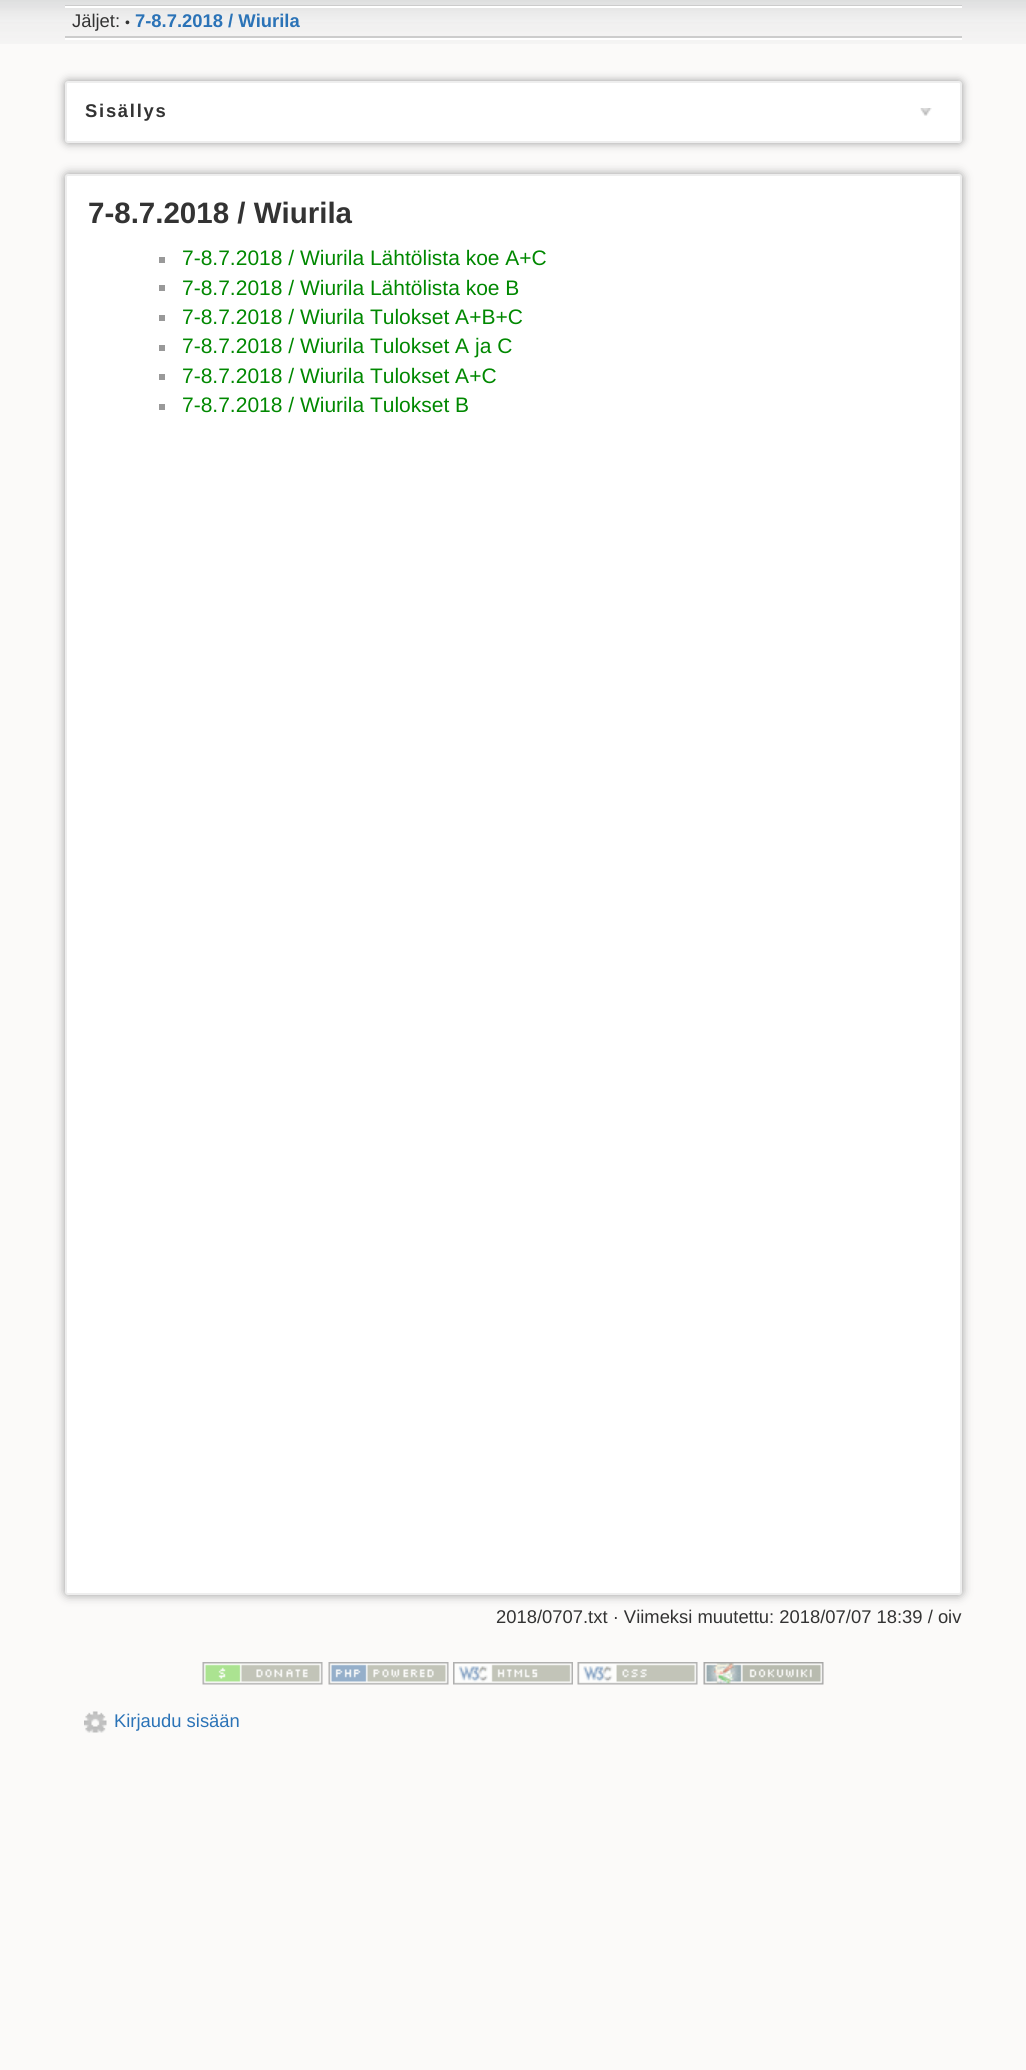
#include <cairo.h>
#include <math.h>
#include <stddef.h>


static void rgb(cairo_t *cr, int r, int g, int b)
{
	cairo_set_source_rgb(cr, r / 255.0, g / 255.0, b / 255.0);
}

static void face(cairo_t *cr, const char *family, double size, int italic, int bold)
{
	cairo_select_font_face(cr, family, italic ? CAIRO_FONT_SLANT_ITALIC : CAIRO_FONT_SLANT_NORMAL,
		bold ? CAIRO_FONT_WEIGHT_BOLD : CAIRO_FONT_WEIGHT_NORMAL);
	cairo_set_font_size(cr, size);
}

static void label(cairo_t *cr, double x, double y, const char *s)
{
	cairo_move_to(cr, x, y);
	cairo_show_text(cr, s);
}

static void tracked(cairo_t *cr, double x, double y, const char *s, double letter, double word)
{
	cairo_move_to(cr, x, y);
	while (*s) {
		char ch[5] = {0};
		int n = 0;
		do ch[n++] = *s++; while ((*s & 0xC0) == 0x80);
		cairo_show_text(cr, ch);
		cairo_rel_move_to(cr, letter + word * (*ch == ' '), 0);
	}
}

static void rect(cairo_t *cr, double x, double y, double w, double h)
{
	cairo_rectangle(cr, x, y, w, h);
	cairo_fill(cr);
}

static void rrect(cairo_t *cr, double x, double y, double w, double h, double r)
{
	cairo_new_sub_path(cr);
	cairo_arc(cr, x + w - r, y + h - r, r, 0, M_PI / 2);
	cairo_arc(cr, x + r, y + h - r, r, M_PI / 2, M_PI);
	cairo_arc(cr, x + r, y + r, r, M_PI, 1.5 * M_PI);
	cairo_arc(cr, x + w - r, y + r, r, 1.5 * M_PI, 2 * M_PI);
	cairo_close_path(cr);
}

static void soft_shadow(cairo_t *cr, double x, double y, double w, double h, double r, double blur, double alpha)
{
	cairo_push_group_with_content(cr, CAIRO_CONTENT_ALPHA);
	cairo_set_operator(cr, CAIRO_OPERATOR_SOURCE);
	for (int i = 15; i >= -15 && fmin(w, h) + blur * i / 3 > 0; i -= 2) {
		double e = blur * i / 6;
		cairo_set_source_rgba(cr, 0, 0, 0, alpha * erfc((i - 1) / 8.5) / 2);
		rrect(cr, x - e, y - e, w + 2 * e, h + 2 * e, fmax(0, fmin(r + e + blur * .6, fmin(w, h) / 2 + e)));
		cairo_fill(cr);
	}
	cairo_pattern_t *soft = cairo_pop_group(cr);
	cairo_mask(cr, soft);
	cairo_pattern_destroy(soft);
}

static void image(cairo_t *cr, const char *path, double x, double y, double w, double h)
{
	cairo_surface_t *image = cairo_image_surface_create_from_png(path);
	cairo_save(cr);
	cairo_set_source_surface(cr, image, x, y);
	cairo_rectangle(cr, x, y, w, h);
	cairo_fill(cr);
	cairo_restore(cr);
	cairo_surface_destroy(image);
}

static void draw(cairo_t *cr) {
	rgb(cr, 251, 250, 249);
	cairo_paint(cr);
	image(cr, "image0.png", 0, 0, 1026, 44);
	rgb(cr, 204, 204, 204);
	rect(cr, 65, 5, 897, 1);
	rgb(cr, 255, 255, 255);
	rect(cr, 65, 38, 897, 2);
	rect(cr, 65, 6, 897, 2);
	rgb(cr, 204, 204, 204);
	rect(cr, 65, 36, 897, 2);
	face(cr, "Liberation Sans", 18.4, 0, 0);
	rgb(cr, 51, 51, 51);
	label(cr, 72, 27, "Jäljet:");
	face(cr, "Liberation Sans", 14, 0, 0);
	label(cr, 125, 27, "•");
	face(cr, "Liberation Sans", 18.4, 0, 1);
	rgb(cr, 43, 115, 183);
	label(cr, 135, 27, "7-8.7.2018 / Wiurila");
	rgb(cr, 153, 153, 153);
	soft_shadow(cr, 65, 81, 897, 62, 3, 4.5, 1);
	rgb(cr, 255, 255, 255);
	rrect(cr, 66, 82, 895, 60, 2);
	cairo_fill_preserve(cr);
	rgb(cr, 238, 238, 238);
	cairo_stroke(cr);
	rgb(cr, 51, 51, 51);
	tracked(cr, 85, 117, "Sisällys", 1.75, 0);
	image(cr, "image1.png", 920, 108, 12, 8);
	rgb(cr, 153, 153, 153);
	soft_shadow(cr, 65, 174, 897, 1421, 3, 5, 1);
	rgb(cr, 255, 255, 255);
	rrect(cr, 66, 175, 895, 1419, 2);
	cairo_fill_preserve(cr);
	rgb(cr, 238, 238, 238);
	cairo_stroke(cr);
	face(cr, "Liberation Sans", 29.5, 0, 1);
	rgb(cr, 51, 51, 51);
	label(cr, 88, 223, "7-8.7.2018 / Wiurila");
	rgb(cr, 153, 153, 153);
	rect(cr, 159, 257, 6, 6);
	face(cr, "Liberation Sans", 21, 0, 0);
	rgb(cr, 0, 136, 0);
	label(cr, 182, 265, "7-8.7.2018 / Wiurila Lähtölista koe A+C");
	rgb(cr, 153, 153, 153);
	rect(cr, 159, 285, 6, 6);
	rgb(cr, 0, 136, 0);
	label(cr, 182, 295, "7-8.7.2018 / Wiurila Lähtölista koe B");
	rgb(cr, 153, 153, 153);
	rect(cr, 159, 315, 6, 6);
	rgb(cr, 0, 136, 0);
	label(cr, 182, 324, "7-8.7.2018 / Wiurila Tulokset A+B+C");
	rgb(cr, 153, 153, 153);
	rect(cr, 159, 345, 6, 6);
	rgb(cr, 0, 136, 0);
	label(cr, 182, 353, "7-8.7.2018 / Wiurila Tulokset A ja C");
	rgb(cr, 153, 153, 153);
	rect(cr, 159, 374, 6, 6);
	rgb(cr, 0, 136, 0);
	label(cr, 182, 383, "7-8.7.2018 / Wiurila Tulokset A+C");
	rgb(cr, 153, 153, 153);
	rect(cr, 159, 404, 6, 6);
	rgb(cr, 0, 136, 0);
	label(cr, 182, 412, "7-8.7.2018 / Wiurila Tulokset B");
	face(cr, "Liberation Sans", 18.4, 0, 0);
	rgb(cr, 51, 51, 51);
	label(cr, 496, 1623, "2018/0707.txt · Viimeksi muutettu: 2018/07/07 18:39 / oiv");
	image(cr, "image2.png", 202, 1662, 121, 23);
	image(cr, "image3.png", 328, 1662, 121, 23);
	image(cr, "image4.png", 453, 1662, 120, 23);
	image(cr, "image5.png", 577, 1662, 121, 23);
	image(cr, "image6.png", 703, 1662, 121, 23);
	image(cr, "image7.png", 84, 1711, 23, 22);
	rgb(cr, 43, 115, 183);
	label(cr, 114, 1727, "Kirjaudu sisään");
}

int main(void) {
	cairo_surface_t *surface = cairo_image_surface_create(CAIRO_FORMAT_RGB24, 1026, 2070);
	cairo_t *cr = cairo_create(surface);
	cairo_font_options_t *options = cairo_font_options_create();
	cairo_font_options_set_hint_metrics(options, CAIRO_HINT_METRICS_OFF);
	cairo_font_options_set_hint_style(options, CAIRO_HINT_STYLE_NONE);
	cairo_set_font_options(cr, options);
	cairo_set_miter_limit(cr, 4);
	draw(cr);
	cairo_surface_write_to_png(surface, "render.png");
	cairo_font_options_destroy(options);
	cairo_destroy(cr);
	cairo_surface_destroy(surface);
	return 0;
}
